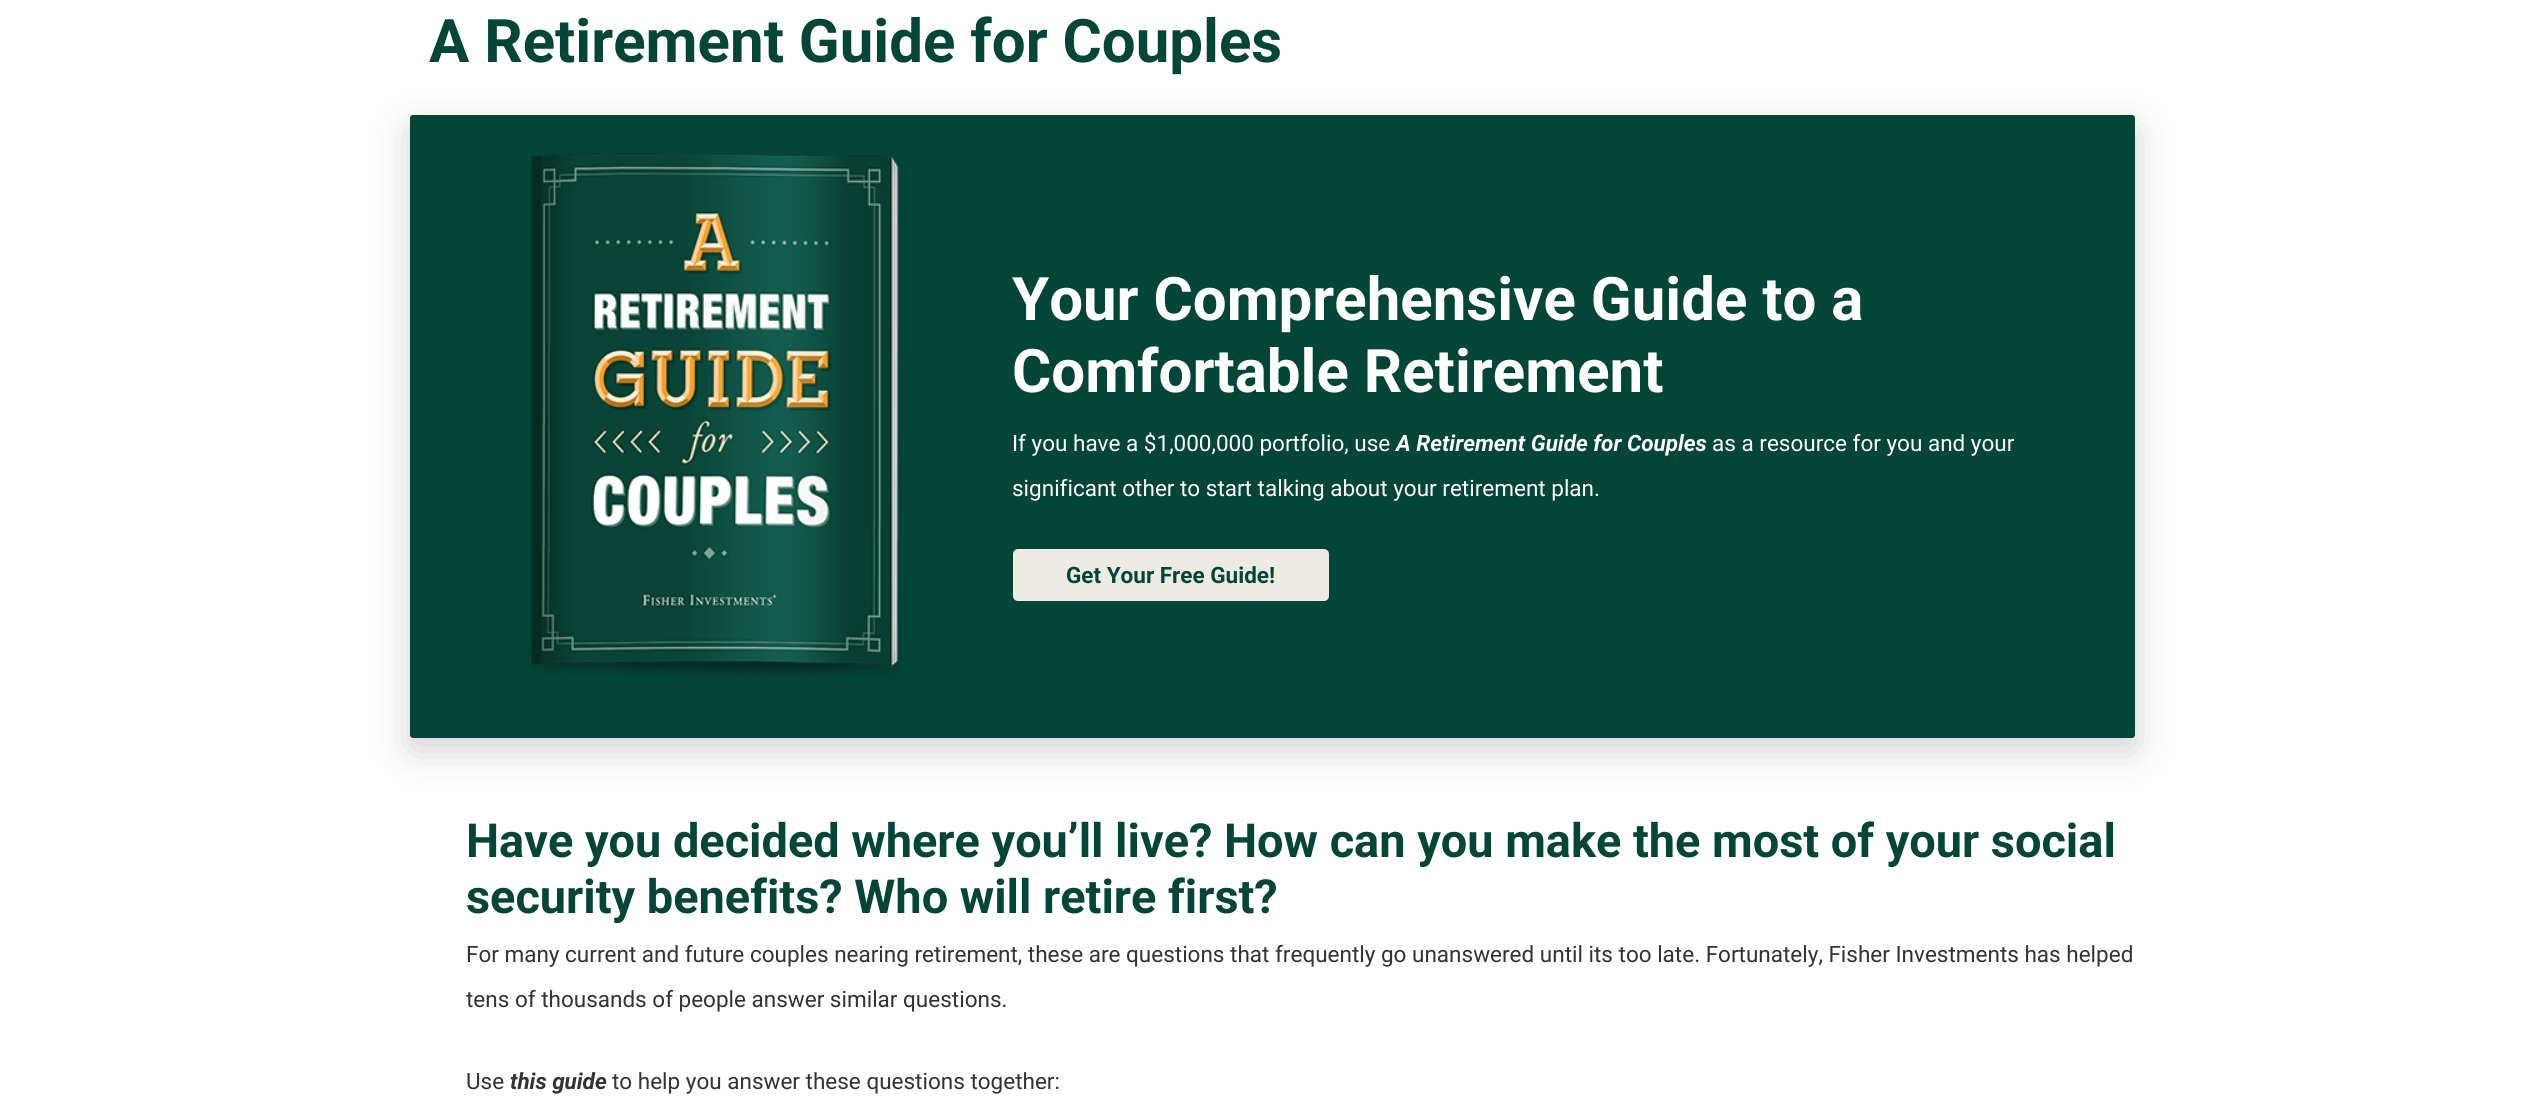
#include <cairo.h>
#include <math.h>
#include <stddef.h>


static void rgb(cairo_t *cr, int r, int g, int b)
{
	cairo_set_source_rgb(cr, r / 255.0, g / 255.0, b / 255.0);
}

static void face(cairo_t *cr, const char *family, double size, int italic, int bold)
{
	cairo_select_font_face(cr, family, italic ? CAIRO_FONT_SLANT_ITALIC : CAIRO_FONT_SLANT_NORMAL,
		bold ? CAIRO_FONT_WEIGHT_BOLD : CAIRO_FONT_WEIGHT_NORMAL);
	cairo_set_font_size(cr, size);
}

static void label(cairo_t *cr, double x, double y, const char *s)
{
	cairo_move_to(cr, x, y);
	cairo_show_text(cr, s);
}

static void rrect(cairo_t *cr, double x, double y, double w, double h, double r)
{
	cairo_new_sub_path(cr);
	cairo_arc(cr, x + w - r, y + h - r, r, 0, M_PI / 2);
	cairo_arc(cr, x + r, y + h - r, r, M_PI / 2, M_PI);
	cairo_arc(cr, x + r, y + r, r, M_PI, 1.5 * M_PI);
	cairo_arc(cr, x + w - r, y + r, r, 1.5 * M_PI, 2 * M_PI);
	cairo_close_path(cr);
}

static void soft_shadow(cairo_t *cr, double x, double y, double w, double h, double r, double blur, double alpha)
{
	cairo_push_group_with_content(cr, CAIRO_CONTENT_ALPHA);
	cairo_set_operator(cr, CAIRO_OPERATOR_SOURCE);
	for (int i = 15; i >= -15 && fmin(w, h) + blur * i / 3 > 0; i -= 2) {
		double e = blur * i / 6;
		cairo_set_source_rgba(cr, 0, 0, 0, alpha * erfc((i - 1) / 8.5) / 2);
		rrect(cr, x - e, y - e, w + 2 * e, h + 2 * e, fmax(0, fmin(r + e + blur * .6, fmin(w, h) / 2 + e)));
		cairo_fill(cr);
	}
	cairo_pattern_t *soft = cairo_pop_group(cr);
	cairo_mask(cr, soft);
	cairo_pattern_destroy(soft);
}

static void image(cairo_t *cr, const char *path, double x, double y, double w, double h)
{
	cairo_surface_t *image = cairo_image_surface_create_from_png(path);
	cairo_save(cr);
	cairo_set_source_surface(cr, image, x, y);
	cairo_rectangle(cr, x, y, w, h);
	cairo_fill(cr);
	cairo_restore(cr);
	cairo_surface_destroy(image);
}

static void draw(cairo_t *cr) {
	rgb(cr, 255, 255, 255);
	cairo_paint(cr);
	face(cr, "Roboto", 60, 0, 1);
	rgb(cr, 3, 70, 56);
	label(cr, 429, 62, "A Retirement Guide for Couples");
	rgb(cr, 0, 0, 0);
	soft_shadow(cr, 410, 128, 1725, 622, 3, 19, 0.18);
	rgb(cr, 3, 70, 56);
	rrect(cr, 410, 115, 1725, 623, 3);
	cairo_fill(cr);
	image(cr, "image0.png", 528, 153, 374, 526);
	rgb(cr, 255, 255, 255);
	label(cr, 1012, 320, "Your Comprehensive Guide to a");
	label(cr, 1012, 392, "Comfortable Retirement");
	face(cr, "Roboto", 22.5, 0, 0);
	label(cr, 1012, 451, "If you have a $1,000,000 portfolio, use");
	face(cr, "Roboto", 22.5, 1, 1);
	label(cr, 1396, 451, "A Retirement Guide for Couples");
	face(cr, "Roboto", 22.5, 0, 0);
	label(cr, 1712, 451, "as a resource for you and your");
	label(cr, 1012, 496, "significant other to start talking about your retirement plan.");
	rgb(cr, 238, 234, 228);
	rrect(cr, 1013, 549, 316, 52, 5);
	cairo_fill(cr);
	face(cr, "Roboto", 22.5, 0, 1);
	rgb(cr, 3, 70, 56);
	label(cr, 1066, 583, "Get Your Free Guide!");
	face(cr, "Roboto", 46.9, 0, 1);
	label(cr, 466, 857, "Have you decided where you’ll live? How can you make the most of your social");
	label(cr, 466, 913, "security benefits? Who will retire first?");
	face(cr, "Roboto", 22.5, 0, 0);
	rgb(cr, 51, 51, 51);
	label(cr, 466, 962, "For many current and future couples nearing retirement, these are questions that frequently go unanswered until its too late. Fortunately, Fisher Investments has helped");
	label(cr, 466, 1007, "tens of thousands of people answer similar questions.");
	label(cr, 466, 1089, "Use");
	face(cr, "Roboto", 22.5, 1, 1);
	label(cr, 510, 1089, "this guide");
	face(cr, "Roboto", 22.5, 0, 0);
	label(cr, 612, 1089, "to help you answer these questions together:");
}

int main(void) {
	cairo_surface_t *surface = cairo_image_surface_create(CAIRO_FORMAT_RGB24, 2545, 1101);
	cairo_t *cr = cairo_create(surface);
	cairo_font_options_t *options = cairo_font_options_create();
	cairo_font_options_set_hint_metrics(options, CAIRO_HINT_METRICS_OFF);
	cairo_font_options_set_hint_style(options, CAIRO_HINT_STYLE_NONE);
	cairo_set_font_options(cr, options);
	cairo_set_miter_limit(cr, 4);
	draw(cr);
	cairo_surface_write_to_png(surface, "render.png");
	cairo_font_options_destroy(options);
	cairo_destroy(cr);
	cairo_surface_destroy(surface);
	return 0;
}
